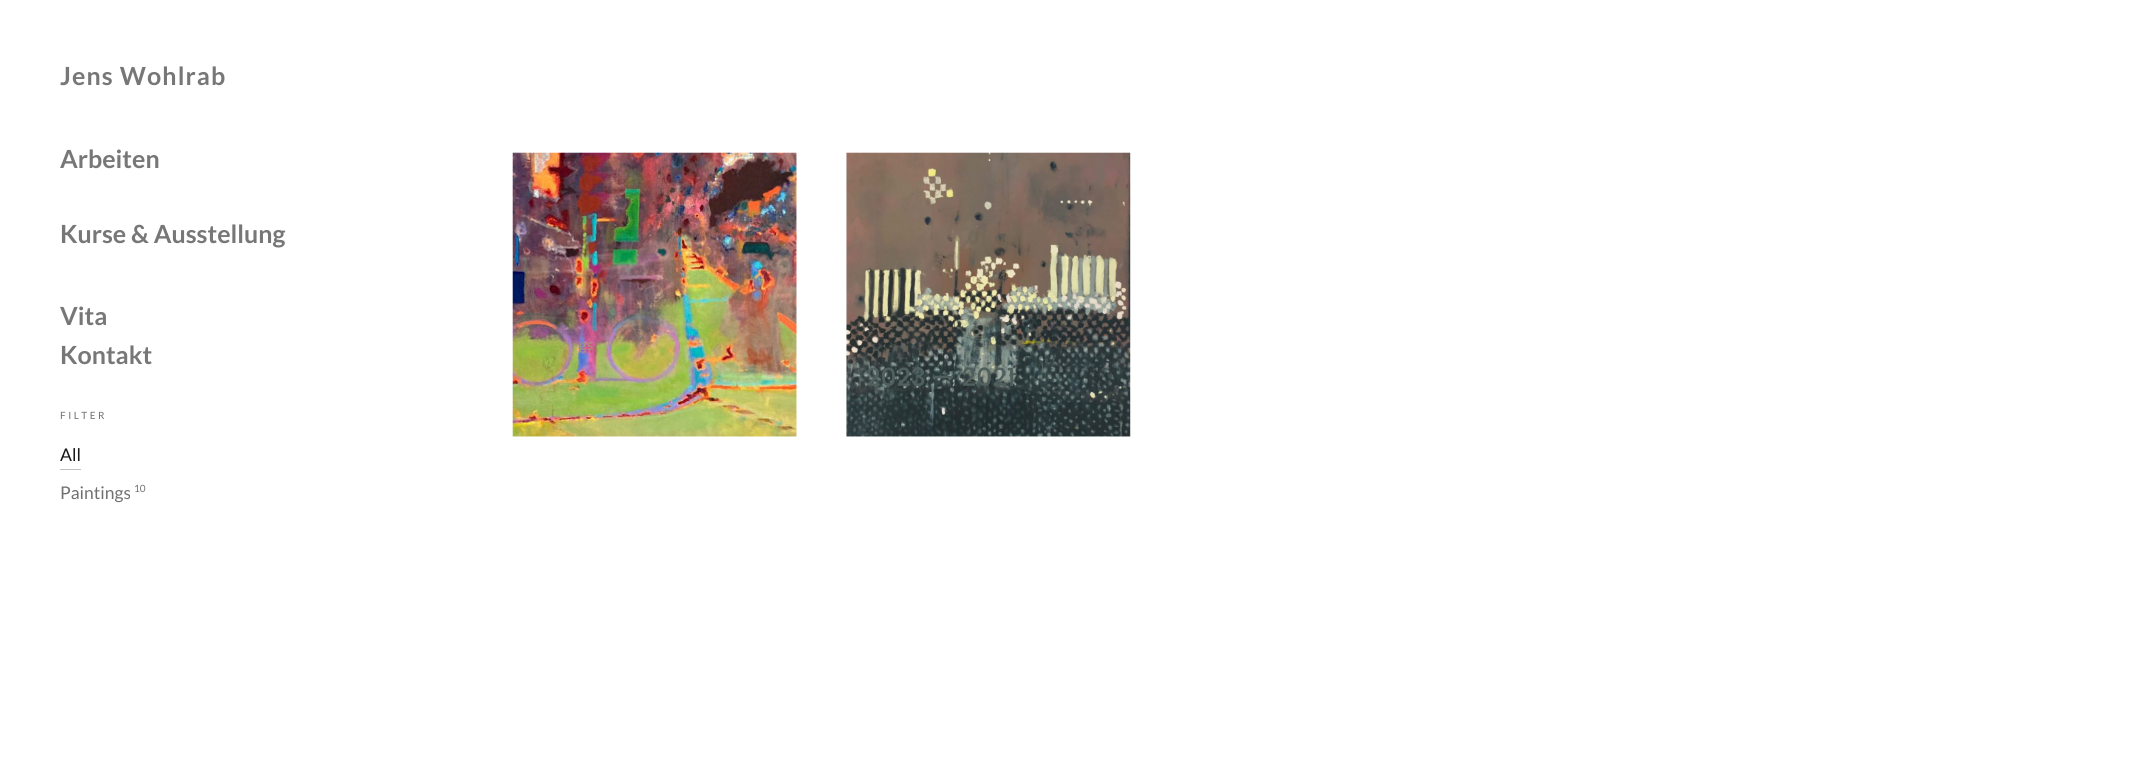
#include <cairo.h>
#include <math.h>
#include <stddef.h>


static void rgb(cairo_t *cr, int r, int g, int b)
{
	cairo_set_source_rgb(cr, r / 255.0, g / 255.0, b / 255.0);
}

static void face(cairo_t *cr, const char *family, double size, int italic, int bold)
{
	cairo_select_font_face(cr, family, italic ? CAIRO_FONT_SLANT_ITALIC : CAIRO_FONT_SLANT_NORMAL,
		bold ? CAIRO_FONT_WEIGHT_BOLD : CAIRO_FONT_WEIGHT_NORMAL);
	cairo_set_font_size(cr, size);
}

static void label(cairo_t *cr, double x, double y, const char *s)
{
	cairo_move_to(cr, x, y);
	cairo_show_text(cr, s);
}

static void tracked(cairo_t *cr, double x, double y, const char *s, double letter, double word)
{
	cairo_move_to(cr, x, y);
	while (*s) {
		char ch[5] = {0};
		int n = 0;
		do ch[n++] = *s++; while ((*s & 0xC0) == 0x80);
		cairo_show_text(cr, ch);
		cairo_rel_move_to(cr, letter + word * (*ch == ' '), 0);
	}
}

static void rect(cairo_t *cr, double x, double y, double w, double h)
{
	cairo_rectangle(cr, x, y, w, h);
	cairo_fill(cr);
}

static void image(cairo_t *cr, const char *path, double x, double y, double w, double h)
{
	cairo_surface_t *image = cairo_image_surface_create_from_png(path);
	cairo_save(cr);
	cairo_set_source_surface(cr, image, x, y);
	cairo_rectangle(cr, x, y, w, h);
	cairo_fill(cr);
	cairo_restore(cr);
	cairo_surface_destroy(image);
}

static void draw(cairo_t *cr) {
	rgb(cr, 255, 255, 255);
	cairo_paint(cr);
	face(cr, "Lato", 25, 0, 1);
	rgb(cr, 119, 119, 119);
	tracked(cr, 60, 85, "Jens Wohlrab", 1.1, 0);
	label(cr, 60, 168, "Arbeiten");
	label(cr, 60, 243, "Kurse & Ausstellung");
	label(cr, 60, 325, "Vita");
	label(cr, 60, 364, "Kontakt");
	face(cr, "Lato", 10, 0, 0);
	rgb(cr, 112, 112, 112);
	tracked(cr, 60, 419, "FILTER", 2.5, 0);
	face(cr, "Lato", 17.5, 0, 0);
	rgb(cr, 24, 24, 24);
	label(cr, 60, 461, "All");
	rgb(cr, 192, 192, 192);
	rect(cr, 60, 469, 21, 1);
	rgb(cr, 112, 112, 112);
	label(cr, 60, 499, "Paintings");
	face(cr, "Lato", 10, 0, 0);
	label(cr, 134, 492, "10");
	image(cr, "image0.png", 512, 152, 285, 285);
	face(cr, "Lato", 15, 0, 0);
	rgb(cr, 162, 151, 117);
	label(cr, 579, 350, "gs");
	image(cr, "image1.png", 846, 152, 285, 285);
	face(cr, "Poppins Medium", 25, 0, 0);
	rgb(cr, 81, 95, 93);
	label(cr, 866, 386, "2023 — 2021");
}

int main(void) {
	cairo_surface_t *surface = cairo_image_surface_create(CAIRO_FORMAT_RGB24, 2135, 764);
	cairo_t *cr = cairo_create(surface);
	cairo_font_options_t *options = cairo_font_options_create();
	cairo_font_options_set_hint_metrics(options, CAIRO_HINT_METRICS_OFF);
	cairo_font_options_set_hint_style(options, CAIRO_HINT_STYLE_NONE);
	cairo_set_font_options(cr, options);
	cairo_set_miter_limit(cr, 4);
	draw(cr);
	cairo_surface_write_to_png(surface, "render.png");
	cairo_font_options_destroy(options);
	cairo_destroy(cr);
	cairo_surface_destroy(surface);
	return 0;
}
